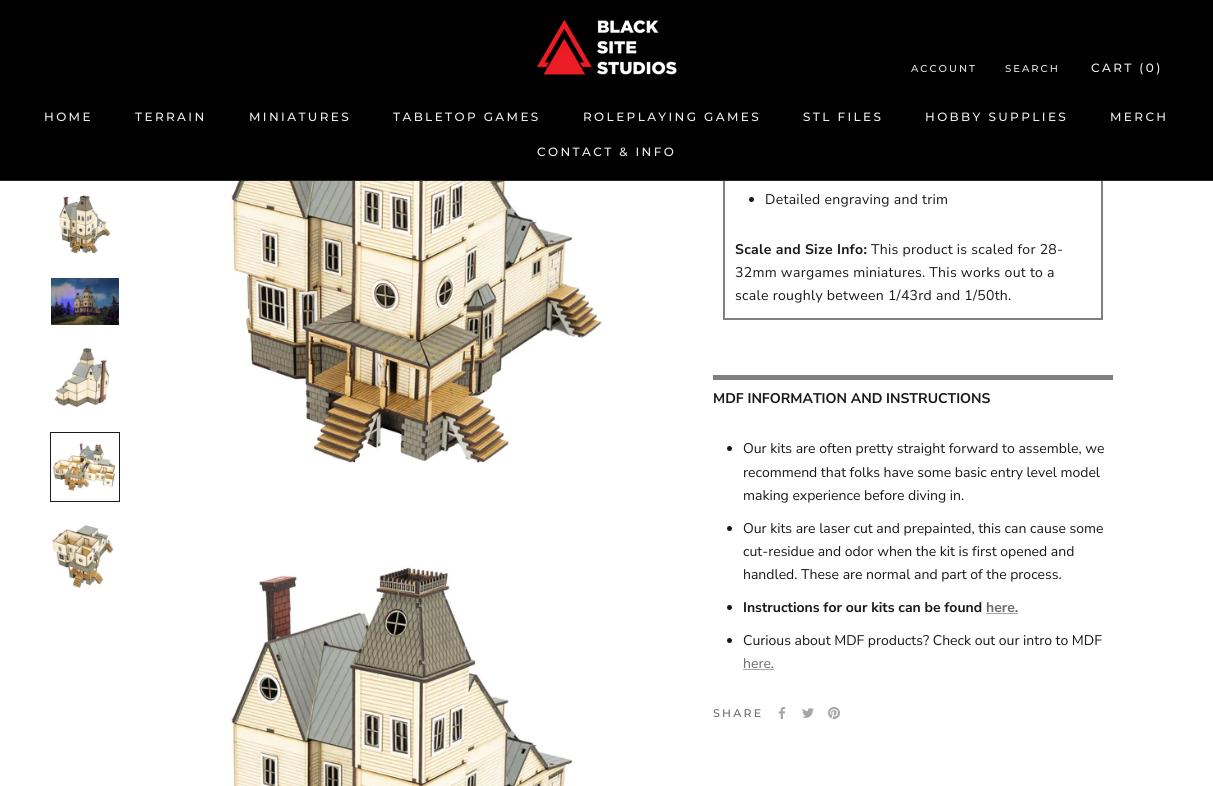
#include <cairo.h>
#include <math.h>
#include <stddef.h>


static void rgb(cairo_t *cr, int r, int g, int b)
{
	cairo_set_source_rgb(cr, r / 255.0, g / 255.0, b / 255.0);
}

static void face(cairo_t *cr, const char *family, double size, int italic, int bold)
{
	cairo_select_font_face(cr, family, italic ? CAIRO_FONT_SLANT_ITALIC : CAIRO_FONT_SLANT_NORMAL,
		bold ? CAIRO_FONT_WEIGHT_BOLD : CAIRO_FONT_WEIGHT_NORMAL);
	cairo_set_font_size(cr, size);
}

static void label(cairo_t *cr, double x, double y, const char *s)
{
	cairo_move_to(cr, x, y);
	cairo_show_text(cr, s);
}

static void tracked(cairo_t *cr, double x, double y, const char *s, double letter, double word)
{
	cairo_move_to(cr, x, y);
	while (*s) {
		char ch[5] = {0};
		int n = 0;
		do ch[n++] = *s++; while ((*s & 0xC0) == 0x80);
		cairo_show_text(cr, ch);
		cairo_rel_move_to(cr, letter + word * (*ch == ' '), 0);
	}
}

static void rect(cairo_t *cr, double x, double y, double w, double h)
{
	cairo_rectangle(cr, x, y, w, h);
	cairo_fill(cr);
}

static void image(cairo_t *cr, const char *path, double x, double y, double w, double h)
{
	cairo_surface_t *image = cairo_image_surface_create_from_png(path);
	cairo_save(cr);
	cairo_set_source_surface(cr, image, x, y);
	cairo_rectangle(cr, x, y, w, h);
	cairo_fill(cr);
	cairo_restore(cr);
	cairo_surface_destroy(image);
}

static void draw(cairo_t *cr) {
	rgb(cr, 255, 255, 255);
	cairo_paint(cr);
	cairo_rectangle(cr, 724, 60, 378, 259);
	rgb(cr, 128, 128, 128);
	cairo_stroke(cr);
	rgb(cr, 0, 0, 0);
	rect(cr, 0, 0, 1213, 180);
	rgb(cr, 37, 35, 35);
	rect(cr, 0, 180, 1213, 1);
	image(cr, "image0.png", 537, 19, 140, 56);
	face(cr, "Montserrat Medium", 10, 0, 0);
	rgb(cr, 236, 227, 227);
	tracked(cr, 911, 72, "ACCOUNT", 2, 0);
	tracked(cr, 1005, 72, "SEARCH", 2, 0);
	face(cr, "Montserrat Medium", 12, 0, 0);
	rgb(cr, 244, 236, 236);
	tracked(cr, 1091, 72, "CART (0)", 2.4, 0);
	tracked(cr, 44, 121, "HOME", 2.4, 0);
	tracked(cr, 135, 121, "TERRAIN", 2.4, 0);
	tracked(cr, 249, 121, "MINIATURES", 2.4, 0);
	tracked(cr, 393, 121, "TABLETOP GAMES", 2.4, 0);
	tracked(cr, 583, 121, "ROLEPLAYING GAMES", 2.4, 0);
	tracked(cr, 803, 121, "STL FILES", 2.4, 0);
	tracked(cr, 925, 121, "HOBBY SUPPLIES", 2.4, 0);
	tracked(cr, 1110, 121, "MERCH", 2.4, 0);
	tracked(cr, 537, 156, "CONTACT & INFO", 2.4, 0);
	image(cr, "image1.png", 59, 194, 52, 60);
	image(cr, "image2.png", 51, 278, 68, 47);
	image(cr, "image3.png", 54, 347, 56, 60);
	cairo_rectangle(cr, 50.5, 432.5, 69, 69);
	rgb(cr, 28, 27, 27);
	cairo_set_line_width(cr, 1);
	cairo_stroke(cr);
	image(cr, "image4.png", 51, 443, 65, 48);
	image(cr, "image5.png", 52, 525, 62, 64);
	image(cr, "image6.png", 230, 181, 372, 284);
	image(cr, "image7.png", 230, 567, 343, 219);
	rgb(cr, 25, 24, 24);
	cairo_arc(cr, 751.5, 199.5, 2.5, 0, 2 * M_PI);
	cairo_fill(cr);
	face(cr, "Nunito Sans", 14, 0, 0);
	tracked(cr, 765, 204, "Detailed engraving and trim", 0.3, 0);
	face(cr, "Nunito Sans", 14, 0, 1);
	tracked(cr, 735, 254, "Scale and Size Info:", 0.3, 0);
	face(cr, "Nunito Sans", 14, 0, 0);
	tracked(cr, 871, 254, "This product is scaled for 28-", 0.3, 0);
	tracked(cr, 735, 277, "32mm wargames miniatures. This works out to a", 0.3, 0);
	tracked(cr, 735, 300, "scale roughly between 1/43rd and 1/50th.", 0.3, 0);
	rgb(cr, 128, 128, 128);
	rect(cr, 713, 375, 400, 5);
	face(cr, "Nunito Sans", 14, 0, 1);
	rgb(cr, 25, 24, 24);
	label(cr, 713, 403, "MDF INFORMATION AND INSTRUCTIONS");
	cairo_new_path(cr);
	cairo_arc(cr, 729.5, 448.5, 2.5, 0, 2 * M_PI);
	cairo_fill(cr);
	face(cr, "Nunito Sans", 14, 0, 0);
	label(cr, 743, 453, "Our kits are often pretty straight forward to assemble, we");
	label(cr, 743, 477, "recommend that folks have some basic entry level model");
	label(cr, 743, 500, "making experience before diving in.");
	cairo_new_path(cr);
	cairo_arc(cr, 729.5, 528.5, 2.5, 0, 2 * M_PI);
	cairo_fill(cr);
	label(cr, 743, 533, "Our kits are laser cut and prepainted, this can cause some");
	label(cr, 743, 556, "cut-residue and odor when the kit is first opened and");
	label(cr, 743, 579, "handled. These are normal and part of the process.");
	cairo_new_path(cr);
	cairo_arc(cr, 729.5, 607.5, 2.5, 0, 2 * M_PI);
	cairo_fill(cr);
	face(cr, "Nunito Sans", 14, 0, 1);
	label(cr, 743, 612, "Instructions for our kits can be found");
	rgb(cr, 106, 106, 106);
	label(cr, 986, 612, "here.");
	rgb(cr, 166, 166, 166);
	rect(cr, 986, 613, 32, 1);
	rgb(cr, 25, 24, 24);
	cairo_new_path(cr);
	cairo_arc(cr, 729.5, 640.5, 2.5, 0, 2 * M_PI);
	cairo_fill(cr);
	face(cr, "Nunito Sans", 14, 0, 0);
	label(cr, 743, 645, "Curious about MDF products? Check out our intro to MDF");
	rgb(cr, 106, 106, 106);
	label(cr, 743, 668, "here.");
	rgb(cr, 166, 166, 166);
	rect(cr, 743, 669, 31, 1);
	face(cr, "Montserrat Medium", 11, 0, 0);
	rgb(cr, 106, 106, 106);
	tracked(cr, 713, 717, "SHARE", 2.25, 0);
	image(cr, "image8.png", 778, 707, 8, 12);
	image(cr, "image9.png", 802, 708, 12, 10);
	image(cr, "image10.png", 828, 707, 12, 12);
}

int main(void) {
	cairo_surface_t *surface = cairo_image_surface_create(CAIRO_FORMAT_RGB24, 1213, 786);
	cairo_t *cr = cairo_create(surface);
	cairo_font_options_t *options = cairo_font_options_create();
	cairo_font_options_set_hint_metrics(options, CAIRO_HINT_METRICS_OFF);
	cairo_font_options_set_hint_style(options, CAIRO_HINT_STYLE_NONE);
	cairo_set_font_options(cr, options);
	cairo_set_miter_limit(cr, 4);
	draw(cr);
	cairo_surface_write_to_png(surface, "render.png");
	cairo_font_options_destroy(options);
	cairo_destroy(cr);
	cairo_surface_destroy(surface);
	return 0;
}
